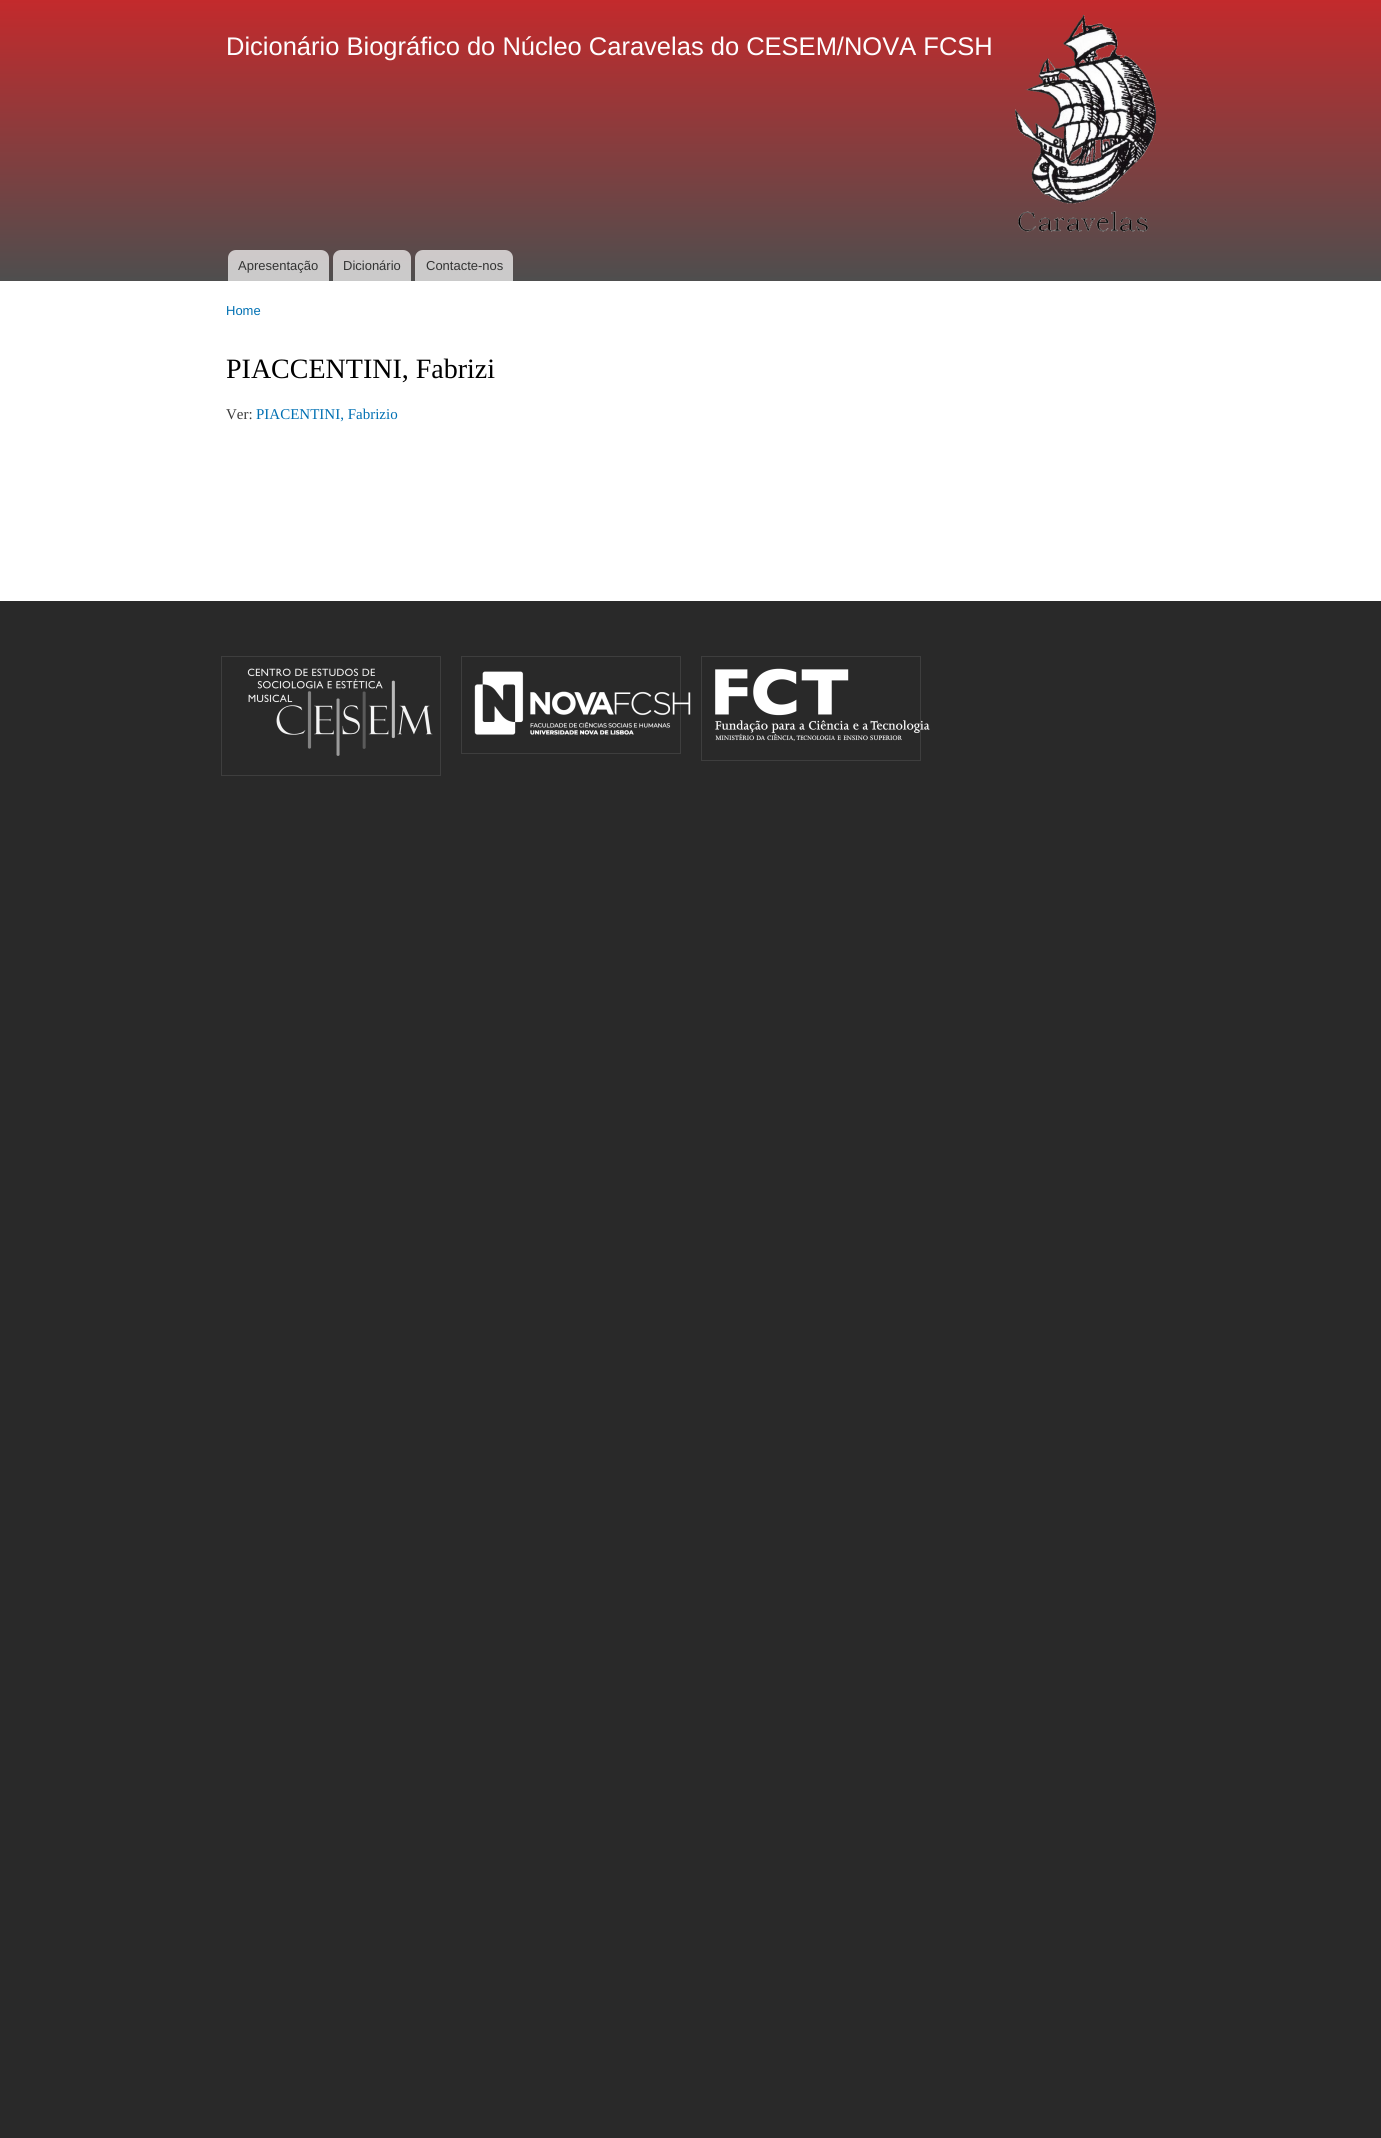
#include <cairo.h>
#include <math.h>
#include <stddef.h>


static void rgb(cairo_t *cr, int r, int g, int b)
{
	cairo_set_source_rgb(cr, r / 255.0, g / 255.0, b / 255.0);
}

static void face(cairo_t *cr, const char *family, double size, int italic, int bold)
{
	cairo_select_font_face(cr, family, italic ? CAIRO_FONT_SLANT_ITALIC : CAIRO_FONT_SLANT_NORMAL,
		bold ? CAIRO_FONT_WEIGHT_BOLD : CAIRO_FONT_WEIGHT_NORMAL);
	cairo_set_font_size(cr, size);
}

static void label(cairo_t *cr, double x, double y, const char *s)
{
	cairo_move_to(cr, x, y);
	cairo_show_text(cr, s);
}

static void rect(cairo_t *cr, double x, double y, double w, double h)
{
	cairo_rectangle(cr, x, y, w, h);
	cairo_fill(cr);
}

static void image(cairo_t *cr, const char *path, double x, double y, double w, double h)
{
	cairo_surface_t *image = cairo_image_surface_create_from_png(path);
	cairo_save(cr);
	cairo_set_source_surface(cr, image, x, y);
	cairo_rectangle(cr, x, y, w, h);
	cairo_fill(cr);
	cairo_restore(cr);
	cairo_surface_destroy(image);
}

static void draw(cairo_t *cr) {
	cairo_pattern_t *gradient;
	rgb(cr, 41, 41, 41);
	cairo_paint(cr);
	rgb(cr, 255, 255, 255);
	rect(cr, 0, 281, 1381, 320);
	gradient = cairo_pattern_create_linear(691, 0, 691, 281);
	cairo_pattern_add_color_stop_rgba(gradient, 0, 0.765, 0.165, 0.173, 1);
	cairo_pattern_add_color_stop_rgba(gradient, 1, 0.306, 0.306, 0.306, 1);
	cairo_set_source(cr, gradient);
	cairo_pattern_destroy(gradient);
	rect(cr, 0, 0, 1381, 281);
	face(cr, "Liberation Sans", 25.5, 0, 0);
	rgb(cr, 255, 254, 255);
	label(cr, 226, 55, "Dicionário Biográfico do Núcleo Caravelas do CESEM/NOVA FCSH");
	image(cr, "image0.png", 1015, 15, 141, 217);
	cairo_set_source_rgba(cr, 1, 1, 1, 0.7);
	cairo_new_path(cr);
	cairo_move_to(cr, 236, 250);
	cairo_line_to(cr, 321, 250);
	cairo_curve_to(cr, 325.5, 250, 329, 253.5, 329, 258);
	cairo_line_to(cr, 329, 281);
	cairo_line_to(cr, 228, 281);
	cairo_line_to(cr, 228, 258);
	cairo_curve_to(cr, 228, 253.5, 231.5, 250, 236, 250);
	cairo_close_path(cr);
	cairo_fill(cr);
	face(cr, "Liberation Sans", 13, 0, 0);
	rgb(cr, 51, 51, 51);
	label(cr, 238, 270, "Apresentação");
	cairo_set_source_rgba(cr, 1, 1, 1, 0.7);
	cairo_new_path(cr);
	cairo_move_to(cr, 341, 250);
	cairo_line_to(cr, 403, 250);
	cairo_curve_to(cr, 407.5, 250, 411, 253.5, 411, 258);
	cairo_line_to(cr, 411, 281);
	cairo_line_to(cr, 333, 281);
	cairo_line_to(cr, 333, 258);
	cairo_curve_to(cr, 333, 253.5, 336.5, 250, 341, 250);
	cairo_close_path(cr);
	cairo_fill(cr);
	rgb(cr, 51, 51, 51);
	label(cr, 343, 270, "Dicionário");
	cairo_set_source_rgba(cr, 1, 1, 1, 0.7);
	cairo_new_path(cr);
	cairo_move_to(cr, 423, 250);
	cairo_line_to(cr, 505, 250);
	cairo_curve_to(cr, 509.5, 250, 513, 253.5, 513, 258);
	cairo_line_to(cr, 513, 281);
	cairo_line_to(cr, 415, 281);
	cairo_line_to(cr, 415, 258);
	cairo_curve_to(cr, 415, 253.5, 418.5, 250, 423, 250);
	cairo_close_path(cr);
	cairo_fill(cr);
	rgb(cr, 51, 51, 51);
	label(cr, 426, 270, "Contacte-nos");
	rgb(cr, 0, 112, 179);
	label(cr, 226, 315, "Home");
	face(cr, "Liberation Serif", 28, 0, 0);
	rgb(cr, 0, 0, 0);
	label(cr, 226, 378, "PIACCENTINI, Fabrizi");
	face(cr, "Liberation Serif", 15, 0, 0);
	rgb(cr, 59, 59, 59);
	label(cr, 226, 419, "Ver:");
	rgb(cr, 0, 112, 179);
	label(cr, 256, 419, "PIACENTINI, Fabrizio");
	cairo_rectangle(cr, 221.5, 656.5, 219, 119);
	rgb(cr, 62, 62, 62);
	cairo_set_line_width(cr, 1);
	cairo_stroke(cr);
	image(cr, "image1.png", 247, 668, 186, 88);
	cairo_rectangle(cr, 461.5, 656.5, 219, 97);
	cairo_stroke(cr);
	image(cr, "image2.png", 474, 671, 217, 64);
	cairo_rectangle(cr, 701.5, 656.5, 219, 104);
	cairo_stroke(cr);
	image(cr, "image3.png", 715, 668, 215, 73);
}

int main(void) {
	cairo_surface_t *surface = cairo_image_surface_create(CAIRO_FORMAT_RGB24, 1381, 2138);
	cairo_t *cr = cairo_create(surface);
	cairo_font_options_t *options = cairo_font_options_create();
	cairo_font_options_set_hint_metrics(options, CAIRO_HINT_METRICS_OFF);
	cairo_font_options_set_hint_style(options, CAIRO_HINT_STYLE_NONE);
	cairo_set_font_options(cr, options);
	cairo_set_miter_limit(cr, 4);
	draw(cr);
	cairo_surface_write_to_png(surface, "render.png");
	cairo_font_options_destroy(options);
	cairo_destroy(cr);
	cairo_surface_destroy(surface);
	return 0;
}
